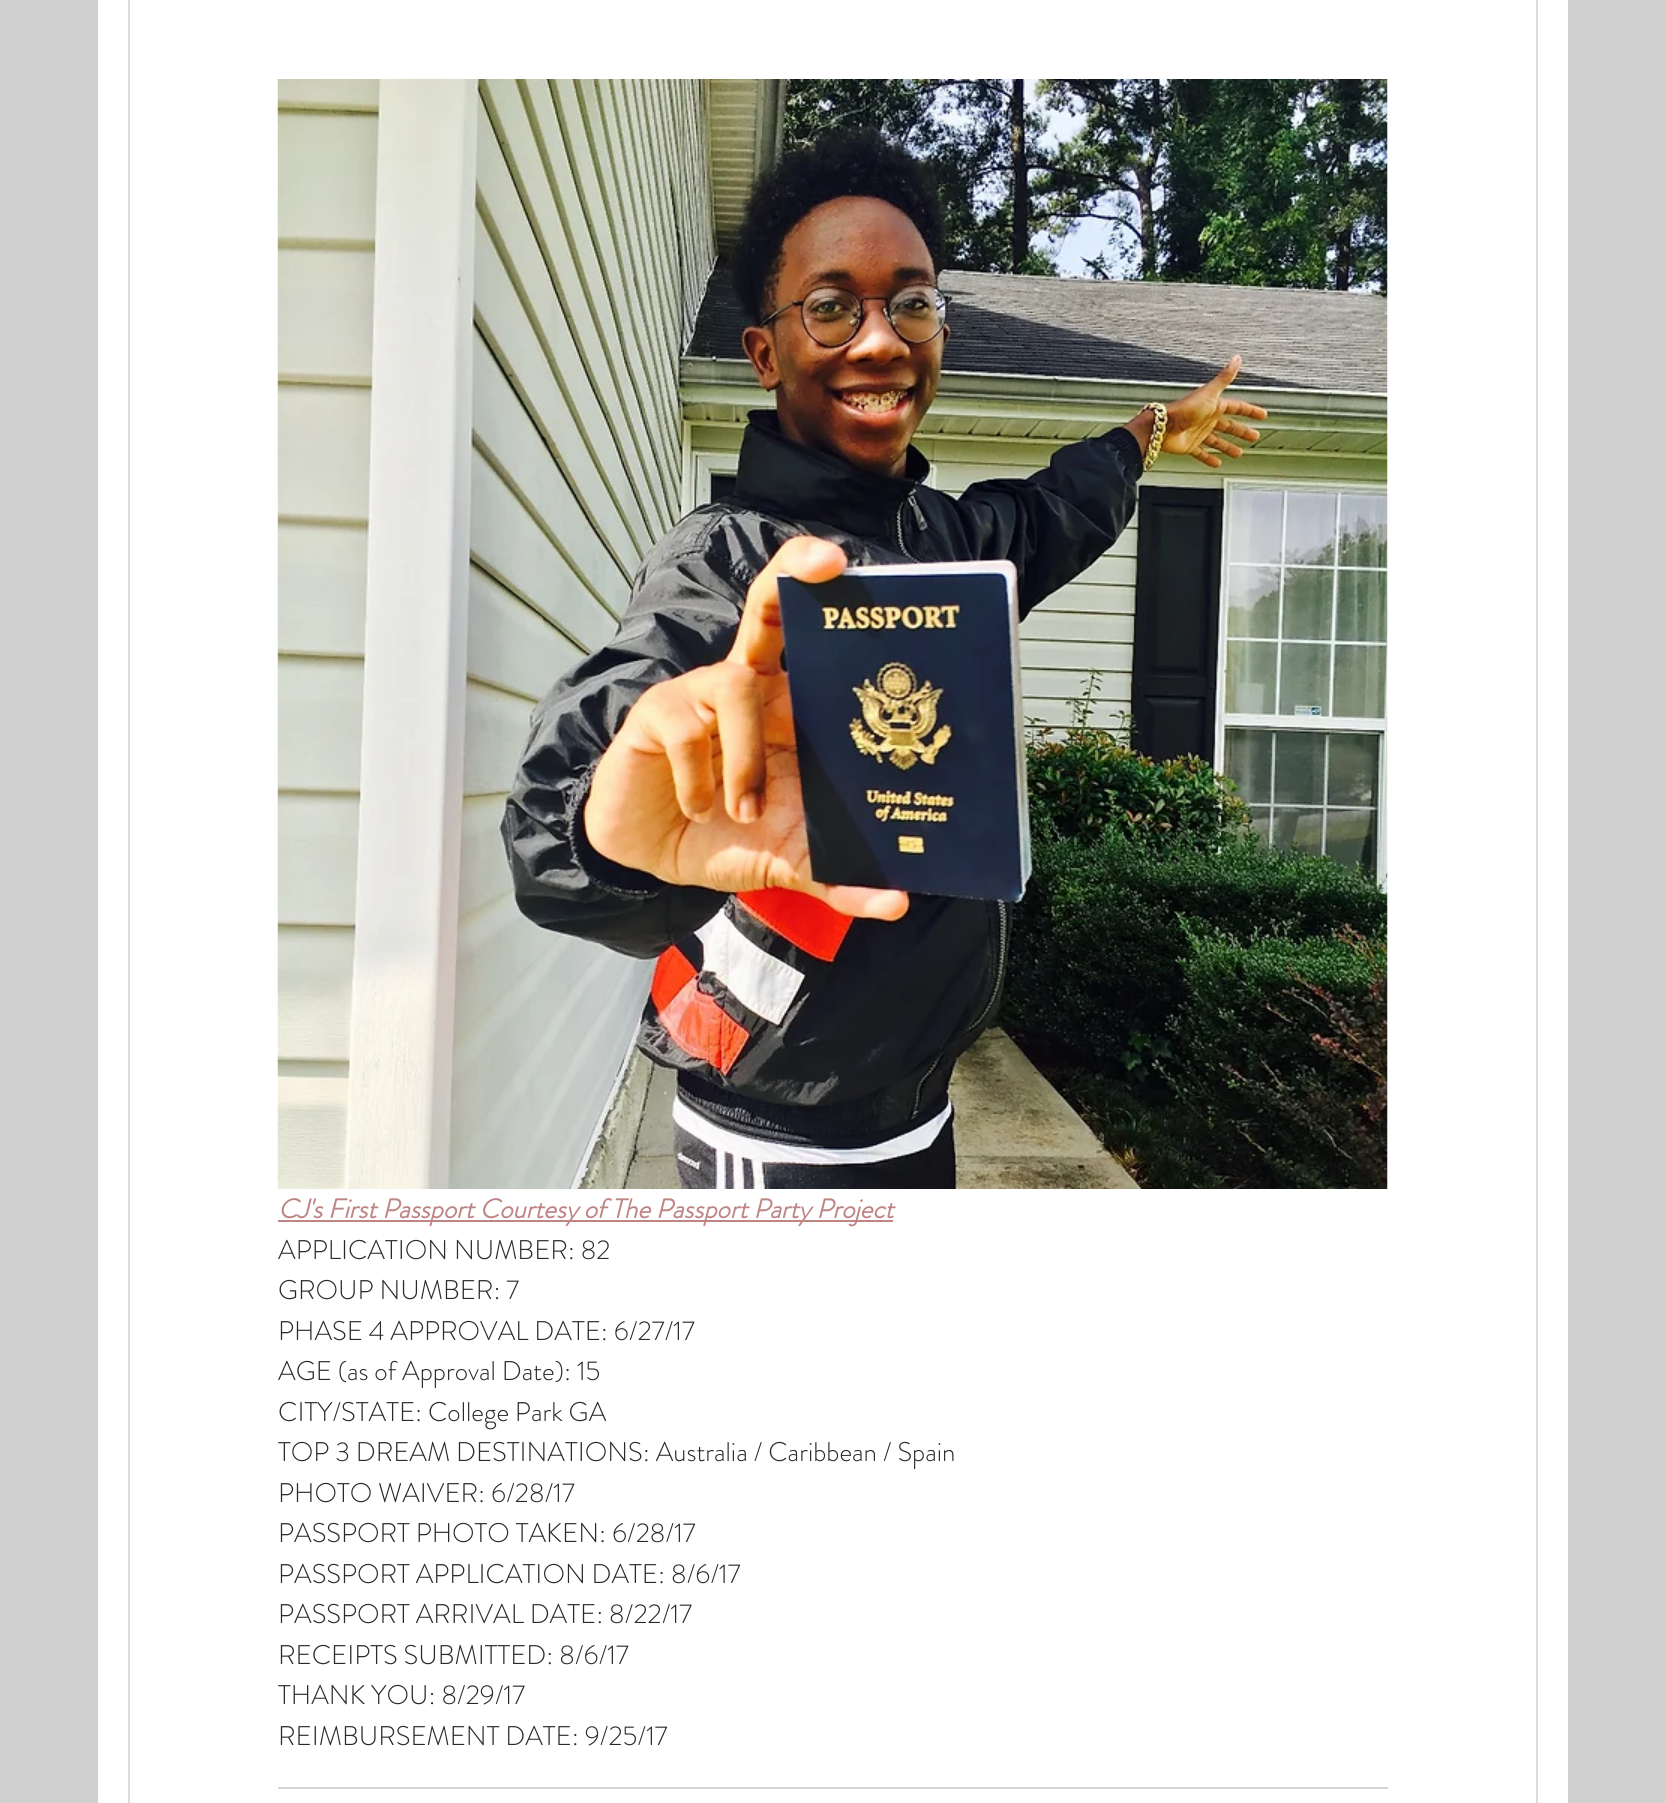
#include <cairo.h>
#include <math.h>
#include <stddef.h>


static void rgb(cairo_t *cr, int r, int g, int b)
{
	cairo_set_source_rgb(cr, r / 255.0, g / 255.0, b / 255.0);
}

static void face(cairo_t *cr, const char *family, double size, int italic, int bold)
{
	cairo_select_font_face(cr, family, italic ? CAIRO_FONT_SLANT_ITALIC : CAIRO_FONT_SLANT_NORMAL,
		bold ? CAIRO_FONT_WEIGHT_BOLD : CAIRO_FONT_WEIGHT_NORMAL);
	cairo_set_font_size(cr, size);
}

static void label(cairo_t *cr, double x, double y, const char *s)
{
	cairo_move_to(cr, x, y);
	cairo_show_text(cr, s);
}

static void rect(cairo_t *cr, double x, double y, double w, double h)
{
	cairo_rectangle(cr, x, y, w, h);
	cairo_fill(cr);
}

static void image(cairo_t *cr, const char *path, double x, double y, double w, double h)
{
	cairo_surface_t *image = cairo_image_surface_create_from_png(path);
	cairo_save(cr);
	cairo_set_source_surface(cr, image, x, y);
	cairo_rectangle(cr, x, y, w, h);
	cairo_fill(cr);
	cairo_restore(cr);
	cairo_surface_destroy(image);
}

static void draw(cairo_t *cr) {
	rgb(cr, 207, 207, 207);
	cairo_paint(cr);
	rgb(cr, 255, 255, 255);
	rect(cr, 98, 0, 1470, 1803);
	cairo_rectangle(cr, 129, -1, 1408, 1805);
	rgb(cr, 219, 219, 219);
	cairo_stroke(cr);
	image(cr, "image0.png", 277, 79, 1111, 1110);
	rgb(cr, 191, 132, 132);
	rect(cr, 278, 1220, 615, 2);
	face(cr, "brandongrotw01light", 27, 1, 1);
	label(cr, 278, 1218, "CJ's First Passport Courtesy of The Passport Party Project");
	face(cr, "brandongrotw01light Light", 27, 0, 0);
	rgb(cr, 41, 41, 41);
	label(cr, 278, 1259, "APPLICATION NUMBER: 82");
	label(cr, 278, 1299, "GROUP NUMBER: 7");
	label(cr, 278, 1340, "PHASE 4 APPROVAL DATE: 6/27/17");
	label(cr, 278, 1380, "AGE (as of Approval Date): 15");
	label(cr, 278, 1421, "CITY/STATE: College Park GA");
	label(cr, 278, 1461, "TOP 3 DREAM DESTINATIONS: Australia / Caribbean / Spain");
	label(cr, 278, 1502, "PHOTO WAIVER: 6/28/17");
	label(cr, 278, 1542, "PASSPORT PHOTO TAKEN: 6/28/17");
	label(cr, 278, 1583, "PASSPORT APPLICATION DATE: 8/6/17");
	label(cr, 278, 1623, "PASSPORT ARRIVAL DATE: 8/22/17");
	label(cr, 278, 1664, "RECEIPTS SUBMITTED: 8/6/17");
	label(cr, 278, 1704, "THANK YOU: 8/29/17");
	label(cr, 278, 1745, "REIMBURSEMENT DATE: 9/25/17");
	rgb(cr, 212, 212, 212);
	rect(cr, 278, 1787, 1110, 2);
}

int main(void) {
	cairo_surface_t *surface = cairo_image_surface_create(CAIRO_FORMAT_RGB24, 1665, 1803);
	cairo_t *cr = cairo_create(surface);
	cairo_font_options_t *options = cairo_font_options_create();
	cairo_font_options_set_hint_metrics(options, CAIRO_HINT_METRICS_OFF);
	cairo_font_options_set_hint_style(options, CAIRO_HINT_STYLE_NONE);
	cairo_set_font_options(cr, options);
	cairo_set_miter_limit(cr, 4);
	draw(cr);
	cairo_surface_write_to_png(surface, "render.png");
	cairo_font_options_destroy(options);
	cairo_destroy(cr);
	cairo_surface_destroy(surface);
	return 0;
}
